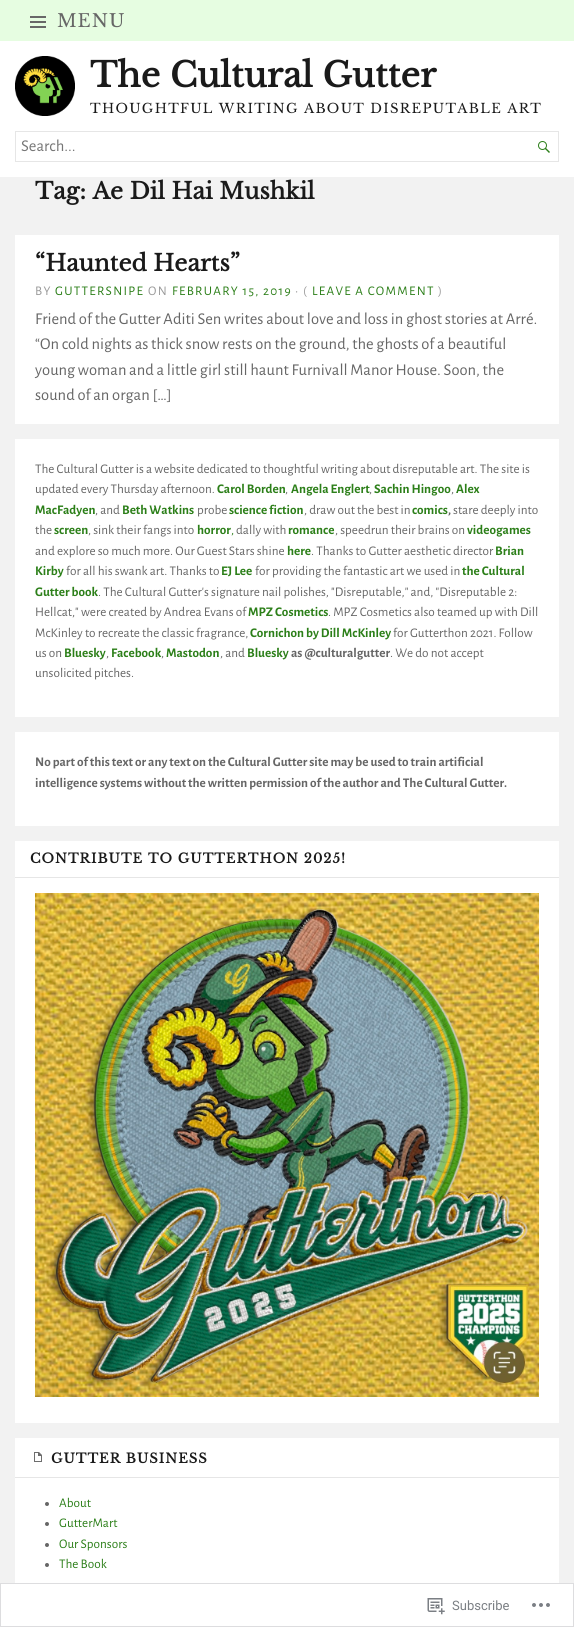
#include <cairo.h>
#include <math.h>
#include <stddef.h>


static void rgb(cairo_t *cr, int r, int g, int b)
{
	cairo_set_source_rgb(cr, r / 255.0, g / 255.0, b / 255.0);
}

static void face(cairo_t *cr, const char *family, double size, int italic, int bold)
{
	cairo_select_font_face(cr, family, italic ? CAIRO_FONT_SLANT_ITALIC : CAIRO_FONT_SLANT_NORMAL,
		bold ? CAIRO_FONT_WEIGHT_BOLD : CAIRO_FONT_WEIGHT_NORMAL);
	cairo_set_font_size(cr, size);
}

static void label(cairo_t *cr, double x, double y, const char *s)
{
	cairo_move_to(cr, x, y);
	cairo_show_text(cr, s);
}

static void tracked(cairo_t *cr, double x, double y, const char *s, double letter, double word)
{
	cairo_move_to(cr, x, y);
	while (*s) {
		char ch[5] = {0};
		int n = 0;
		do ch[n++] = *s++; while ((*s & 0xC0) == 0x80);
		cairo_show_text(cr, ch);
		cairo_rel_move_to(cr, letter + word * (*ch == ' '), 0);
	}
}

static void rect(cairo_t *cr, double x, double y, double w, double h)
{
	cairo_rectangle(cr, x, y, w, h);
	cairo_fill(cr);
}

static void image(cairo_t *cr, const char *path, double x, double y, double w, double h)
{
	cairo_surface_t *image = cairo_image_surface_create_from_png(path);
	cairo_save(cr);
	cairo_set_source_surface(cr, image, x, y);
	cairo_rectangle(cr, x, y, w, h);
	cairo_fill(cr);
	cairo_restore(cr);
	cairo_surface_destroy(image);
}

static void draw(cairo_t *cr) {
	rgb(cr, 242, 242, 242);
	cairo_paint(cr);
	rgb(cr, 255, 255, 255);
	rect(cr, 0, 1583, 574, 44);
	rgb(cr, 230, 253, 225);
	rect(cr, 0, 0, 574, 41);
	image(cr, "image0.png", 30, 16, 16, 12);
	face(cr, "Libre Baskerville", 18, 0, 0);
	rgb(cr, 102, 102, 102);
	tracked(cr, 57, 27, "MENU", 1, 0);
	rgb(cr, 255, 255, 255);
	rect(cr, 0, 41, 574, 136);
	image(cr, "image1.png", 15, 56, 60, 60);
	face(cr, "Libre Baskerville", 34, 0, 1);
	rgb(cr, 26, 26, 26);
	label(cr, 90, 87, "The Cultural Gutter");
	face(cr, "Libre Baskerville", 13.2, 0, 0);
	tracked(cr, 90, 113, "THOUGHTFUL WRITING ABOUT DISREPUTABLE ART", 1.3, 0);
	cairo_rectangle(cr, 15.5, 131.5, 543, 30);
	rgb(cr, 230, 230, 230);
	cairo_set_line_width(cr, 1);
	cairo_stroke(cr);
	face(cr, "Alegreya Sans", 16.5, 0, 0);
	rgb(cr, 117, 117, 117);
	label(cr, 21, 151, "Search...");
	image(cr, "image2.png", 538, 141, 12, 12);
	face(cr, "Libre Baskerville", 22.75, 0, 1);
	rgb(cr, 26, 26, 26);
	label(cr, 35, 199, "Tag: Ae Dil Hai Mushkil");
	rgb(cr, 255, 255, 255);
	rect(cr, 15, 235, 544, 189);
	rgb(cr, 26, 26, 26);
	label(cr, 35, 271, "“Haunted Hearts”");
	face(cr, "Alegreya Sans", 13.2, 0, 0);
	rgb(cr, 153, 153, 153);
	tracked(cr, 35, 295, "BY", 1.3, 0);
	rgb(cr, 44, 127, 25);
	tracked(cr, 55, 295, "GUTTERSNIPE", 1.3, 0);
	rgb(cr, 153, 153, 153);
	tracked(cr, 148, 295, "ON", 1.3, 0);
	rgb(cr, 44, 127, 25);
	tracked(cr, 172, 295, "FEBRUARY 15, 2019", 1.3, 0);
	rgb(cr, 153, 153, 153);
	tracked(cr, 295, 295, "• (", 1.3, 0);
	rgb(cr, 44, 127, 25);
	tracked(cr, 312, 295, "LEAVE A COMMENT", 1.3, 0);
	rgb(cr, 153, 153, 153);
	tracked(cr, 438, 295, ")", 1.3, 0);
	face(cr, "Alegreya Sans", 16.5, 0, 0);
	rgb(cr, 102, 102, 102);
	label(cr, 35, 324, "Friend of the Gutter Aditi Sen writes about love and loss in ghost stories at Arré.");
	label(cr, 35, 349, "“On cold nights as thick snow rests on the ground, the ghosts of a beautiful");
	label(cr, 35, 375, "young woman and a little girl still haunt Furnivall Manor House. Soon, the");
	label(cr, 35, 400, "sound of an organ […]");
	rgb(cr, 255, 255, 255);
	rect(cr, 15, 439, 544, 278);
	face(cr, "Alegreya Sans", 13.2, 0, 0);
	rgb(cr, 102, 102, 102);
	label(cr, 35, 473, "The Cultural Gutter is a website dedicated to thoughtful writing about disreputable art. The site is");
	label(cr, 35, 493, "updated every Thursday afternoon.");
	face(cr, "Alegreya Sans", 13.2, 0, 1);
	rgb(cr, 44, 127, 25);
	label(cr, 217, 493, "Carol Borden");
	face(cr, "Alegreya Sans", 13.2, 0, 0);
	rgb(cr, 102, 102, 102);
	label(cr, 285, 493, ",");
	face(cr, "Alegreya Sans", 13.2, 0, 1);
	rgb(cr, 44, 127, 25);
	label(cr, 291, 493, "Angela Englert");
	face(cr, "Alegreya Sans", 13.2, 0, 0);
	rgb(cr, 102, 102, 102);
	label(cr, 369, 493, ",");
	face(cr, "Alegreya Sans", 13.2, 0, 1);
	rgb(cr, 44, 127, 25);
	label(cr, 374, 493, "Sachin Hingoo");
	face(cr, "Alegreya Sans", 13.2, 0, 0);
	rgb(cr, 102, 102, 102);
	label(cr, 451, 493, ",");
	face(cr, "Alegreya Sans", 13.2, 0, 1);
	rgb(cr, 44, 127, 25);
	label(cr, 456, 493, "Alex");
	label(cr, 35, 514, "MacFadyen");
	face(cr, "Alegreya Sans", 13.2, 0, 0);
	rgb(cr, 102, 102, 102);
	label(cr, 95, 514, ", and");
	face(cr, "Alegreya Sans", 13.2, 0, 1);
	rgb(cr, 44, 127, 25);
	label(cr, 122, 514, "Beth Watkins");
	face(cr, "Alegreya Sans", 13.2, 0, 0);
	rgb(cr, 102, 102, 102);
	label(cr, 197, 514, "probe");
	face(cr, "Alegreya Sans", 13.2, 0, 1);
	rgb(cr, 44, 127, 25);
	label(cr, 229, 514, "science fiction");
	face(cr, "Alegreya Sans", 13.2, 0, 0);
	rgb(cr, 102, 102, 102);
	label(cr, 304, 514, ", draw out the best in");
	face(cr, "Alegreya Sans", 13.2, 0, 1);
	rgb(cr, 44, 127, 25);
	label(cr, 412, 514, "comics");
	rgb(cr, 102, 102, 102);
	label(cr, 448, 514, ",");
	face(cr, "Alegreya Sans", 13.2, 0, 0);
	label(cr, 453, 514, "stare deeply into");
	label(cr, 35, 534, "the");
	face(cr, "Alegreya Sans", 13.2, 0, 1);
	rgb(cr, 44, 127, 25);
	label(cr, 54, 534, "screen");
	face(cr, "Alegreya Sans", 13.2, 0, 0);
	rgb(cr, 102, 102, 102);
	label(cr, 88, 534, ", sink their fangs into");
	face(cr, "Alegreya Sans", 13.2, 0, 1);
	rgb(cr, 44, 127, 25);
	label(cr, 197, 534, "horror");
	face(cr, "Alegreya Sans", 13.2, 0, 0);
	label(cr, 231, 534, ",");
	rgb(cr, 102, 102, 102);
	label(cr, 236, 534, "dally with");
	face(cr, "Alegreya Sans", 13.2, 0, 1);
	rgb(cr, 44, 127, 25);
	label(cr, 288, 534, "romance");
	face(cr, "Alegreya Sans", 13.2, 0, 0);
	rgb(cr, 102, 102, 102);
	label(cr, 335, 534, ", speedrun their brains on");
	face(cr, "Alegreya Sans", 13.2, 0, 1);
	rgb(cr, 44, 127, 25);
	label(cr, 467, 534, "videogames");
	face(cr, "Alegreya Sans", 13.2, 0, 0);
	rgb(cr, 102, 102, 102);
	label(cr, 35, 555, "and explore so much more. Our Guest Stars shine");
	face(cr, "Alegreya Sans", 13.2, 0, 1);
	rgb(cr, 44, 127, 25);
	label(cr, 287, 555, "here");
	face(cr, "Alegreya Sans", 13.2, 0, 0);
	rgb(cr, 102, 102, 102);
	label(cr, 311, 555, ". Thanks to Gutter aesthetic director");
	face(cr, "Alegreya Sans", 13.2, 0, 1);
	rgb(cr, 44, 127, 25);
	label(cr, 495, 555, "Brian");
	label(cr, 35, 575, "Kirby");
	face(cr, "Alegreya Sans", 13.2, 0, 0);
	rgb(cr, 102, 102, 102);
	label(cr, 66, 575, "for all his swank art. Thanks to");
	face(cr, "Alegreya Sans", 13.2, 0, 1);
	rgb(cr, 44, 127, 25);
	label(cr, 221, 575, "EJ Lee");
	face(cr, "Alegreya Sans", 13.2, 0, 0);
	rgb(cr, 102, 102, 102);
	label(cr, 255, 575, "for providing the fantastic art we used in");
	face(cr, "Alegreya Sans", 13.2, 0, 1);
	rgb(cr, 44, 127, 25);
	label(cr, 462, 575, "the Cultural");
	label(cr, 35, 596, "Gutter book");
	face(cr, "Alegreya Sans", 13.2, 0, 0);
	rgb(cr, 102, 102, 102);
	label(cr, 98, 596, ". The Cultural Gutter's signature nail polishes, \"Disreputable,\" and, \"Disreputable 2:");
	label(cr, 35, 616, "Hellcat,\" were created by Andrea Evans of");
	face(cr, "Alegreya Sans", 13.2, 0, 1);
	rgb(cr, 44, 127, 25);
	label(cr, 248, 616, "MPZ Cosmetics");
	face(cr, "Alegreya Sans", 13.2, 0, 0);
	rgb(cr, 102, 102, 102);
	label(cr, 328, 616, ". MPZ Cosmetics also teamed up with Dill");
	label(cr, 35, 637, "McKinley to recreate the classic fragrance,");
	face(cr, "Alegreya Sans", 13.2, 0, 1);
	rgb(cr, 44, 127, 25);
	label(cr, 250, 637, "Cornichon by Dill McKinley");
	face(cr, "Alegreya Sans", 13.2, 0, 0);
	rgb(cr, 102, 102, 102);
	label(cr, 393, 637, "for Gutterthon 2021. Follow");
	label(cr, 35, 657, "us on");
	face(cr, "Alegreya Sans", 13.2, 0, 1);
	rgb(cr, 44, 127, 25);
	label(cr, 64, 657, "Bluesky");
	face(cr, "Alegreya Sans", 13.2, 0, 0);
	rgb(cr, 102, 102, 102);
	label(cr, 106, 657, ",");
	face(cr, "Alegreya Sans", 13.2, 0, 1);
	rgb(cr, 44, 127, 25);
	label(cr, 111, 657, "Facebook");
	face(cr, "Alegreya Sans", 13.2, 0, 0);
	rgb(cr, 102, 102, 102);
	label(cr, 161, 657, ",");
	face(cr, "Alegreya Sans", 13.2, 0, 1);
	rgb(cr, 44, 127, 25);
	label(cr, 166, 657, "Mastodon");
	face(cr, "Alegreya Sans", 13.2, 0, 0);
	rgb(cr, 102, 102, 102);
	label(cr, 220, 657, ", and");
	face(cr, "Alegreya Sans", 13.2, 0, 1);
	rgb(cr, 44, 127, 25);
	label(cr, 247, 657, "Bluesky");
	rgb(cr, 102, 102, 102);
	label(cr, 291, 657, "as @culturalgutter");
	face(cr, "Alegreya Sans", 13.2, 0, 0);
	label(cr, 390, 657, ". We do not accept");
	label(cr, 35, 677, "unsolicited pitches.");
	rgb(cr, 255, 255, 255);
	rect(cr, 15, 732, 544, 94);
	face(cr, "Alegreya Sans", 13.2, 0, 1);
	rgb(cr, 102, 102, 102);
	label(cr, 35, 766, "No part of this text or any text on the Cultural Gutter site may be used to train artificial");
	label(cr, 35, 787, "intelligence systems without the written permission of the author and The Cultural Gutter.");
	rgb(cr, 255, 255, 255);
	rect(cr, 15, 841, 544, 582);
	rgb(cr, 230, 230, 230);
	rect(cr, 15, 877, 544, 1);
	face(cr, "Libre Baskerville", 13.2, 0, 1);
	rgb(cr, 26, 26, 26);
	tracked(cr, 30, 863, "CONTRIBUTE TO GUTTERTHON 2025!", 1, 0);
	image(cr, "image3.png", 35, 893, 504, 504);
	rgb(cr, 255, 255, 255);
	rect(cr, 15, 1438, 544, 145);
	rgb(cr, 230, 230, 230);
	rect(cr, 15, 1477, 544, 1);
	image(cr, "image4.png", 34, 1452, 8, 10);
	rgb(cr, 26, 26, 26);
	tracked(cr, 51, 1463, "GUTTER BUSINESS", 1, 0);
	rgb(cr, 102, 102, 102);
	cairo_new_path(cr);
	cairo_arc(cr, 47, 1504, 2, 0, 2 * M_PI);
	cairo_fill(cr);
	face(cr, "Alegreya Sans", 13.2, 0, 0);
	rgb(cr, 44, 127, 25);
	label(cr, 59, 1507, "About");
	rgb(cr, 102, 102, 102);
	cairo_new_path(cr);
	cairo_arc(cr, 47, 1524, 2, 0, 2 * M_PI);
	cairo_fill(cr);
	rgb(cr, 44, 127, 25);
	label(cr, 59, 1527, "GutterMart");
	rgb(cr, 102, 102, 102);
	cairo_new_path(cr);
	cairo_arc(cr, 47, 1545, 2, 0, 2 * M_PI);
	cairo_fill(cr);
	rgb(cr, 44, 127, 25);
	label(cr, 59, 1548, "Our Sponsors");
	rgb(cr, 102, 102, 102);
	cairo_new_path(cr);
	cairo_arc(cr, 47, 1565, 2, 0, 2 * M_PI);
	cairo_fill(cr);
	rgb(cr, 44, 127, 25);
	label(cr, 59, 1568, "The Book");
	cairo_rectangle(cr, 0.5, 1583.5, 573, 43);
	cairo_set_source_rgba(cr, 0.863, 0.863, 0.871, 0.98);
	cairo_stroke(cr);
	image(cr, "image5.png", 427, 1598, 18, 17);
	face(cr, "Roboto", 13, 0, 0);
	rgb(cr, 123, 127, 132);
	label(cr, 452, 1610, "Subscribe");
	image(cr, "image6.png", 532, 1603, 18, 4);
}

int main(void) {
	cairo_surface_t *surface = cairo_image_surface_create(CAIRO_FORMAT_RGB24, 574, 1627);
	cairo_t *cr = cairo_create(surface);
	cairo_font_options_t *options = cairo_font_options_create();
	cairo_font_options_set_hint_metrics(options, CAIRO_HINT_METRICS_OFF);
	cairo_font_options_set_hint_style(options, CAIRO_HINT_STYLE_NONE);
	cairo_set_font_options(cr, options);
	cairo_set_miter_limit(cr, 4);
	draw(cr);
	cairo_surface_write_to_png(surface, "render.png");
	cairo_font_options_destroy(options);
	cairo_destroy(cr);
	cairo_surface_destroy(surface);
	return 0;
}
